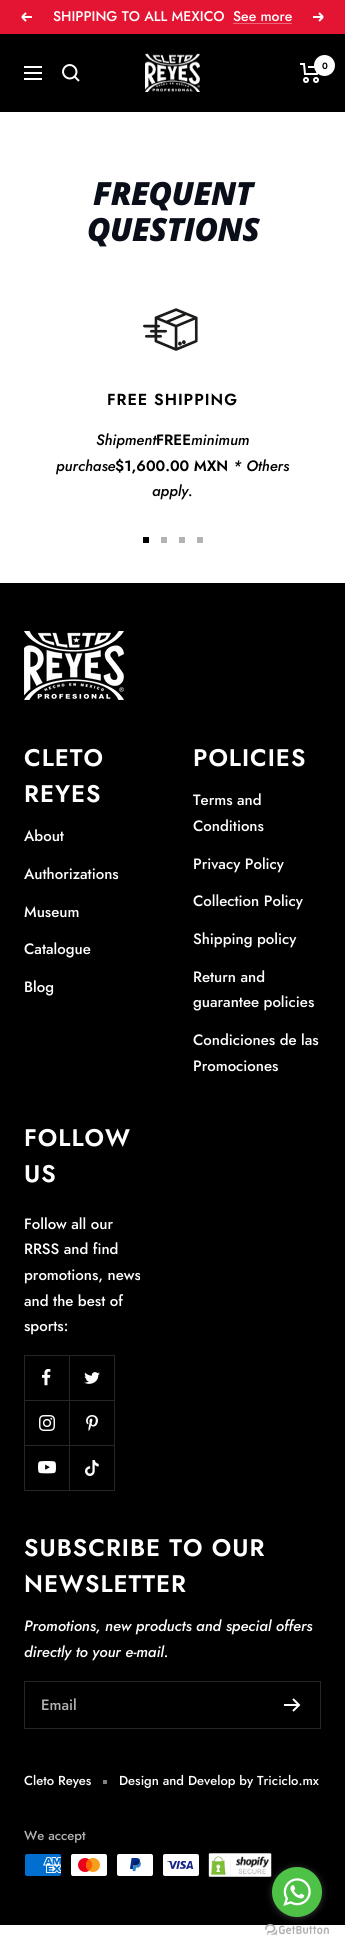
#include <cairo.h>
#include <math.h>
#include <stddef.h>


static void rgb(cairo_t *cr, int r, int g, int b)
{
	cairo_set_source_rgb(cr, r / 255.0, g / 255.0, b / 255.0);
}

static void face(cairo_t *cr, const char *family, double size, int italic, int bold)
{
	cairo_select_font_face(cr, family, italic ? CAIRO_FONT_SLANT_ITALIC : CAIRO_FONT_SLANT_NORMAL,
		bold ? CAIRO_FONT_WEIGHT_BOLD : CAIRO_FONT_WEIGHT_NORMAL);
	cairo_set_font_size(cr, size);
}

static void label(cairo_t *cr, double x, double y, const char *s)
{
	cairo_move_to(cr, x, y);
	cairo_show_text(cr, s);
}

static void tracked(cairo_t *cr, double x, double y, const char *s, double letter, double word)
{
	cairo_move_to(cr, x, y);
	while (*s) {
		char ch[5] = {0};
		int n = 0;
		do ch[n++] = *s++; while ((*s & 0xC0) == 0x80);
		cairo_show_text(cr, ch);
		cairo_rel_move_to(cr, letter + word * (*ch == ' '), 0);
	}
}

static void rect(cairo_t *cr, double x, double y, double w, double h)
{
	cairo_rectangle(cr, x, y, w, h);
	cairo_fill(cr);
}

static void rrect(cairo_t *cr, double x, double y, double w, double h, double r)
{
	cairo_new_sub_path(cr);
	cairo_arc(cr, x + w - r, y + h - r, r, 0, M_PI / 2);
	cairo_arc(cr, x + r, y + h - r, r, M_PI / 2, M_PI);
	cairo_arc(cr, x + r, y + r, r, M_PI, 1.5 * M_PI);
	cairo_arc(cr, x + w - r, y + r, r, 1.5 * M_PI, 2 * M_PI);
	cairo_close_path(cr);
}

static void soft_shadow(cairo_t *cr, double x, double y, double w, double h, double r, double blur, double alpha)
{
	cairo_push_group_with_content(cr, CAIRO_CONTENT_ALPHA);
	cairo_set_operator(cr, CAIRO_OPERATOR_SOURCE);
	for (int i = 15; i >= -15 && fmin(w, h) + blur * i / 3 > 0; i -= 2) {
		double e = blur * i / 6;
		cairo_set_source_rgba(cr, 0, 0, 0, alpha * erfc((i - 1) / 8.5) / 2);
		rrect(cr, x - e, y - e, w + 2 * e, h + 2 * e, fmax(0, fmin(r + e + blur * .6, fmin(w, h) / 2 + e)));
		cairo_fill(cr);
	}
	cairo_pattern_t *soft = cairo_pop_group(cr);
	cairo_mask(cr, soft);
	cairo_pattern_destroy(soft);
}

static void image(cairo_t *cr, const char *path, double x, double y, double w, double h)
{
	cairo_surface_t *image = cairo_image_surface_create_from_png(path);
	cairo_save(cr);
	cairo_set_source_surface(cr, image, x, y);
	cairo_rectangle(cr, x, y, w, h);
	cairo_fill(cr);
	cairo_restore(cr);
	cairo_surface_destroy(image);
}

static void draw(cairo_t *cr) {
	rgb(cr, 255, 255, 255);
	cairo_paint(cr);
	rgb(cr, 228, 21, 51);
	rect(cr, 0, 0, 345, 34);
	cairo_new_path(cr);
	cairo_move_to(cr, 32, 17);
	cairo_line_to(cr, 22, 17);
	cairo_move_to(cr, 22, 17);
	cairo_line_to(cr, 26, 21);
	cairo_move_to(cr, 22, 17);
	cairo_line_to(cr, 26, 13);
	rgb(cr, 255, 255, 255);
	cairo_stroke(cr);
	face(cr, "Jost Medium", 14, 0, 0);
	label(cr, 53, 21, "SHIPPING TO ALL MEXICO");
	label(cr, 233, 21, "See more");
	rgb(cr, 237, 103, 122);
	rect(cr, 233, 23, 59, 1);
	cairo_new_path(cr);
	cairo_move_to(cr, 313, 17);
	cairo_line_to(cr, 323, 17);
	cairo_move_to(cr, 323, 17);
	cairo_line_to(cr, 319, 21);
	cairo_move_to(cr, 323, 17);
	cairo_line_to(cr, 319, 13);
	rgb(cr, 255, 255, 255);
	cairo_stroke(cr);
	rgb(cr, 0, 0, 0);
	rect(cr, 0, 34, 345, 78);
	cairo_new_path(cr);
	cairo_move_to(cr, 24, 67);
	cairo_line_to(cr, 42, 67);
	cairo_move_to(cr, 24, 79);
	cairo_line_to(cr, 42, 79);
	cairo_close_path(cr);
	cairo_move_to(cr, 24, 73);
	cairo_line_to(cr, 42, 73);
	cairo_close_path(cr);
	cairo_move_to(cr, 74.5, 76.5);
	cairo_curve_to(cr, 80.5, 70, 71.5, 61, 65, 67);
	cairo_curve_to(cr, 59, 73.5, 68, 82.5, 74.5, 76.5);
	cairo_close_path(cr);
	cairo_move_to(cr, 74.5, 76.5);
	cairo_line_to(cr, 79, 81);
	rgb(cr, 255, 255, 255);
	cairo_stroke(cr);
	image(cr, "image0.png", 145, 53, 55, 39);
	cairo_new_path(cr);
	cairo_move_to(cr, 300, 64);
	cairo_line_to(cr, 304, 64);
	cairo_line_to(cr, 305, 74);
	cairo_line_to(cr, 317, 74);
	cairo_line_to(cr, 319, 67);
	cairo_line_to(cr, 308, 67);
	cairo_stroke(cr);
	cairo_arc(cr, 306, 80, 2, 0, 2 * M_PI);
	cairo_stroke(cr);
	cairo_arc(cr, 316, 80, 2, 0, 2 * M_PI);
	cairo_stroke(cr);
	cairo_arc(cr, 324.5, 65.5, 10.5, 0, 2 * M_PI);
	cairo_fill(cr);
	face(cr, "Jost SemiBold", 9, 0, 0);
	rgb(cr, 0, 0, 0);
	label(cr, 322, 69, "0");
	face(cr, "Open Sans ExtraBold", 32, 1, 0);
	rgb(cr, 10, 14, 24);
	tracked(cr, 93, 205, "FREQUENT", -0.5, 0);
	tracked(cr, 87, 241, "QUESTIONS", -0.5, 0);
	image(cr, "image1.png", 143, 308, 55, 43);
	face(cr, "Jost SemiBold", 16, 0, 0);
	rgb(cr, 0, 0, 0);
	tracked(cr, 107, 405, "FREE SHIPPING", 1, 0);
	face(cr, "Jost Medium", 15, 1, 0);
	label(cr, 96, 445, "Shipment");
	face(cr, "Jost SemiBold", 15, 0, 0);
	label(cr, 156, 445, "FREE");
	face(cr, "Jost Medium", 15, 1, 0);
	label(cr, 191, 445, "minimum");
	label(cr, 56, 471, "purchase");
	face(cr, "Jost SemiBold", 15, 0, 0);
	label(cr, 115, 471, "$1,600.00 MXN");
	face(cr, "Jost Medium", 15, 1, 0);
	label(cr, 233, 471, "* Others");
	label(cr, 152, 496, "apply.");
	rect(cr, 143, 537, 6, 6);
	rgb(cr, 179, 179, 179);
	rect(cr, 161, 537, 6, 6);
	rect(cr, 179, 537, 6, 6);
	rect(cr, 197, 537, 6, 6);
	rgb(cr, 0, 0, 0);
	rect(cr, 0, 583, 345, 1342);
	image(cr, "image2.png", 24, 631, 100, 69);
	face(cr, "Jost SemiBold", 24, 0, 0);
	rgb(cr, 255, 255, 255);
	tracked(cr, 24, 766, "CLETO", 1, 0);
	tracked(cr, 24, 802, "REYES", 1, 0);
	face(cr, "Jost Medium", 15, 0, 0);
	label(cr, 24, 841, "About");
	label(cr, 24, 879, "Authorizations");
	label(cr, 24, 917, "Museum");
	label(cr, 24, 954, "Catalogue");
	label(cr, 24, 992, "Blog");
	face(cr, "Jost SemiBold", 24, 0, 0);
	tracked(cr, 193, 766, "POLICIES", 1, 0);
	face(cr, "Jost Medium", 15, 0, 0);
	label(cr, 193, 805, "Terms and");
	label(cr, 193, 831, "Conditions");
	label(cr, 193, 869, "Privacy Policy");
	label(cr, 193, 906, "Collection Policy");
	label(cr, 193, 944, "Shipping policy");
	label(cr, 193, 982, "Return and");
	label(cr, 193, 1007, "guarantee policies");
	label(cr, 193, 1045, "Condiciones de las");
	label(cr, 193, 1071, "Promociones");
	face(cr, "Jost SemiBold", 24, 0, 0);
	tracked(cr, 24, 1146, "FOLLOW", 1, 0);
	tracked(cr, 24, 1182, "US", 1, 0);
	face(cr, "Jost Medium", 15, 0, 0);
	label(cr, 24, 1229, "Follow all our");
	label(cr, 24, 1254, "RRSS and find");
	label(cr, 24, 1280, "promotions, news");
	label(cr, 24, 1306, "and the best of");
	label(cr, 24, 1331, "sports:");
	rgb(cr, 38, 38, 38);
	cairo_new_path(cr);
	cairo_move_to(cr, 25, 1400);
	cairo_line_to(cr, 25, 1401);
	cairo_line_to(cr, 70, 1401);
	cairo_line_to(cr, 70, 1356);
	cairo_line_to(cr, 69, 1356);
	cairo_line_to(cr, 69, 1400);
	cairo_close_path(cr);
	cairo_fill(cr);
	rect(cr, 24, 1400, 1, 1);
	rect(cr, 24, 1355, 46, 1);
	rect(cr, 24, 1355, 1, 45);
	image(cr, "image3.png", 42, 1369, 9, 17);
	cairo_new_path(cr);
	cairo_move_to(cr, 70, 1400);
	cairo_line_to(cr, 70, 1401);
	cairo_line_to(cr, 115, 1401);
	cairo_line_to(cr, 115, 1356);
	cairo_line_to(cr, 114, 1356);
	cairo_line_to(cr, 114, 1400);
	cairo_close_path(cr);
	cairo_fill(cr);
	rect(cr, 69, 1355, 46, 1);
	image(cr, "image4.png", 84, 1372, 16, 12);
	cairo_new_path(cr);
	cairo_move_to(cr, 25, 1445);
	cairo_line_to(cr, 25, 1446);
	cairo_line_to(cr, 70, 1446);
	cairo_line_to(cr, 70, 1401);
	cairo_line_to(cr, 69, 1401);
	cairo_line_to(cr, 69, 1445);
	cairo_close_path(cr);
	cairo_fill(cr);
	rect(cr, 24, 1400, 1, 46);
	image(cr, "image5.png", 39, 1415, 16, 16);
	cairo_new_path(cr);
	cairo_move_to(cr, 70, 1445);
	cairo_line_to(cr, 70, 1446);
	cairo_line_to(cr, 115, 1446);
	cairo_line_to(cr, 115, 1401);
	cairo_line_to(cr, 114, 1401);
	cairo_line_to(cr, 114, 1445);
	cairo_close_path(cr);
	cairo_fill(cr);
	image(cr, "image6.png", 86, 1415, 12, 16);
	cairo_new_path(cr);
	cairo_move_to(cr, 25, 1490);
	cairo_line_to(cr, 25, 1491);
	cairo_line_to(cr, 70, 1491);
	cairo_line_to(cr, 70, 1446);
	cairo_line_to(cr, 69, 1446);
	cairo_line_to(cr, 69, 1490);
	cairo_close_path(cr);
	cairo_fill(cr);
	rect(cr, 24, 1445, 1, 46);
	image(cr, "image7.png", 38, 1461, 18, 13);
	cairo_new_path(cr);
	cairo_move_to(cr, 70, 1490);
	cairo_line_to(cr, 70, 1491);
	cairo_line_to(cr, 115, 1491);
	cairo_line_to(cr, 115, 1446);
	cairo_line_to(cr, 114, 1446);
	cairo_line_to(cr, 114, 1490);
	cairo_close_path(cr);
	cairo_fill(cr);
	image(cr, "image8.png", 85, 1460, 14, 16);
	face(cr, "Jost SemiBold", 24, 0, 0);
	rgb(cr, 255, 255, 255);
	tracked(cr, 24, 1556, "SUBSCRIBE TO OUR", 1, 0);
	tracked(cr, 24, 1592, "NEWSLETTER", 1, 0);
	face(cr, "Jost Medium", 15, 1, 0);
	label(cr, 24, 1631, "Promotions, new products and special offers");
	label(cr, 24, 1657, "directly to your e-mail.");
	cairo_rectangle(cr, 24.5, 1681.5, 296, 47);
	rgb(cr, 38, 38, 38);
	cairo_set_line_width(cr, 1);
	cairo_stroke(cr);
	face(cr, "Jost Medium", 15, 0, 0);
	rgb(cr, 179, 179, 179);
	label(cr, 41, 1710, "Email");
	cairo_new_path(cr);
	cairo_move_to(cr, 284, 1705);
	cairo_line_to(cr, 299, 1705);
	cairo_move_to(cr, 293, 1699);
	cairo_line_to(cr, 299, 1705);
	cairo_line_to(cr, 293, 1711);
	rgb(cr, 255, 255, 255);
	cairo_set_line_width(cr, 2);
	cairo_stroke(cr);
	face(cr, "Jost Medium", 13, 0, 0);
	label(cr, 24, 1785, "Cleto Reyes");
	rgb(cr, 128, 128, 128);
	rect(cr, 103, 1780, 4, 4);
	rgb(cr, 255, 255, 255);
	label(cr, 119, 1785, "Design and Develop by Triciclo.mx");
	rgb(cr, 179, 179, 179);
	label(cr, 24, 1840, "We accept");
	image(cr, "image9.png", 25, 1854, 36, 22);
	image(cr, "image10.png", 71, 1854, 36, 22);
	image(cr, "image11.png", 117, 1854, 36, 22);
	image(cr, "image12.png", 163, 1854, 36, 22);
	image(cr, "image13.png", 208, 1853, 64, 24);
	image(cr, "image15.png", 265, 1924, 64, 11);
	rgb(cr, 136, 136, 136);
	soft_shadow(cr, 272, 1868, 50, 50, 25, 3.5, 0.4);
	rgb(cr, 77, 194, 71);
	cairo_arc(cr, 297, 1892, 25, 0, 2 * M_PI);
	cairo_fill(cr);
	image(cr, "image14.png", 283, 1878, 28, 28);
}

int main(void) {
	cairo_surface_t *surface = cairo_image_surface_create(CAIRO_FORMAT_RGB24, 345, 1951);
	cairo_t *cr = cairo_create(surface);
	cairo_font_options_t *options = cairo_font_options_create();
	cairo_font_options_set_hint_metrics(options, CAIRO_HINT_METRICS_OFF);
	cairo_font_options_set_hint_style(options, CAIRO_HINT_STYLE_NONE);
	cairo_set_font_options(cr, options);
	cairo_set_miter_limit(cr, 4);
	draw(cr);
	cairo_surface_write_to_png(surface, "render.png");
	cairo_font_options_destroy(options);
	cairo_destroy(cr);
	cairo_surface_destroy(surface);
	return 0;
}
